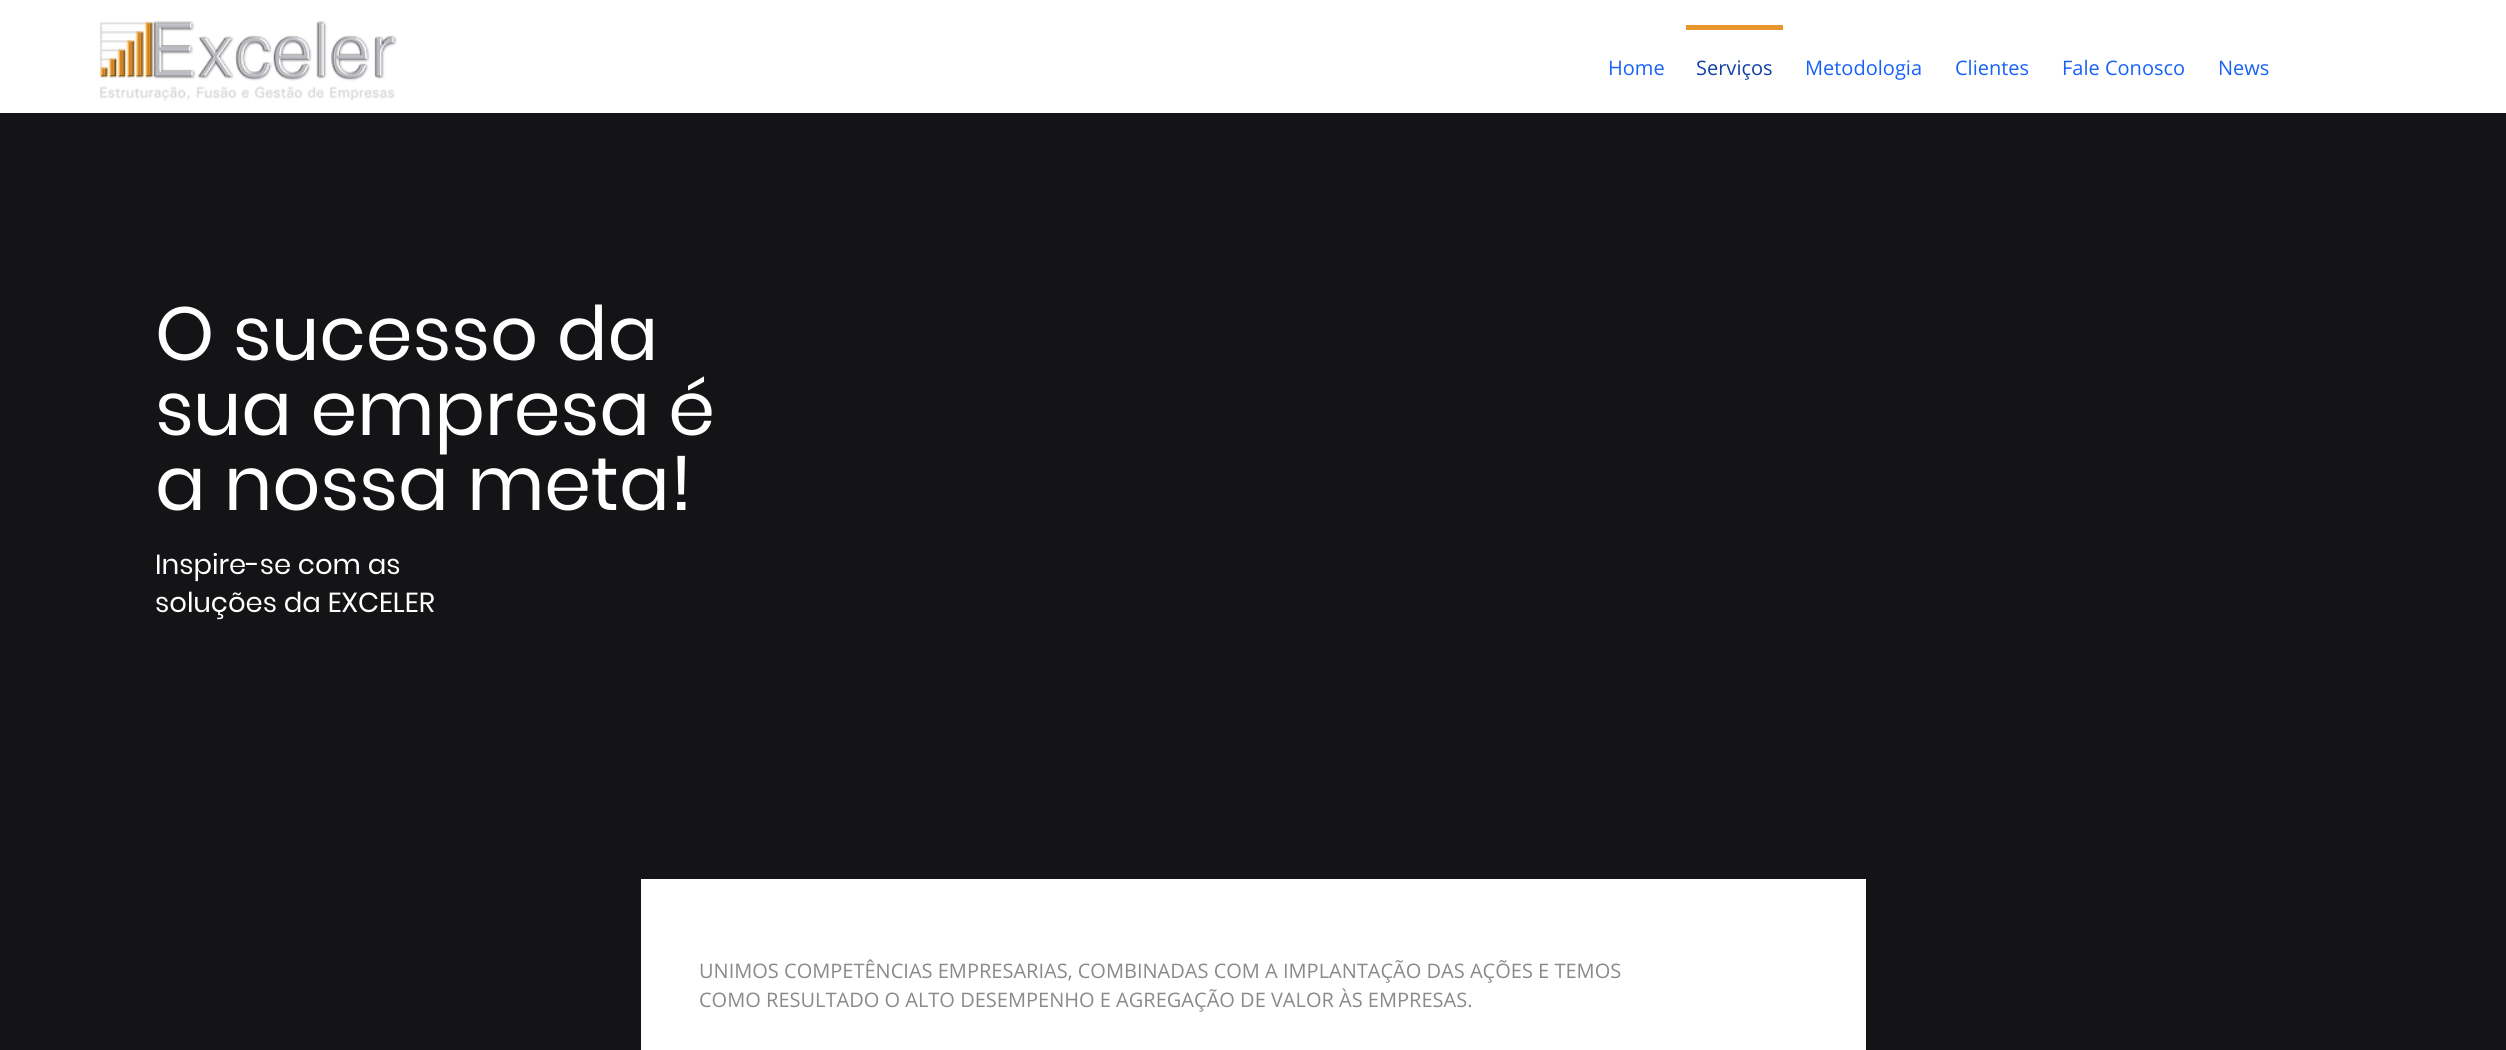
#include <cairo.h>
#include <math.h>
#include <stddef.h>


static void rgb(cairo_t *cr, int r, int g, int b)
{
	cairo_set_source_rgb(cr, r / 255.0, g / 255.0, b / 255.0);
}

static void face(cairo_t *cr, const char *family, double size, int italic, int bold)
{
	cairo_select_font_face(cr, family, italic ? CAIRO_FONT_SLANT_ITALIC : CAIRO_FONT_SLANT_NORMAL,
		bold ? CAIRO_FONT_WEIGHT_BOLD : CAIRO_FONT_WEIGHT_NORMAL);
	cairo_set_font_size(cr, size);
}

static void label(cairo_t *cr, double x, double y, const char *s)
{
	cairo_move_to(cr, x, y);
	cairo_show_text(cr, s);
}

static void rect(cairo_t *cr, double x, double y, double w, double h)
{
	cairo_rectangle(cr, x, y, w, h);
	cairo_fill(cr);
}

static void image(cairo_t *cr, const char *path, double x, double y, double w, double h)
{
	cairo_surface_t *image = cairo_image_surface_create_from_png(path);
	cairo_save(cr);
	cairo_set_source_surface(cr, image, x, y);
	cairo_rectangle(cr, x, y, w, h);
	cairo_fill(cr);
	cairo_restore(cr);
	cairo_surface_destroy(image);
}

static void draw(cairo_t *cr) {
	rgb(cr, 20, 20, 22);
	cairo_paint(cr);
	rgb(cr, 255, 255, 255);
	rect(cr, 0, 0, 2506, 113);
	image(cr, "image0.png", 99, 21, 298, 80);
	face(cr, "Open Sans", 20, 0, 0);
	rgb(cr, 24, 98, 247);
	label(cr, 1608, 75, "Home");
	rgb(cr, 232, 149, 46);
	rect(cr, 1686, 25, 97, 5);
	rgb(cr, 16, 65, 165);
	label(cr, 1696, 75, "Serviços");
	rgb(cr, 24, 98, 247);
	label(cr, 1805, 75, "Metodologia");
	label(cr, 1955, 75, "Clientes");
	label(cr, 2062, 75, "Fale Conosco");
	label(cr, 2218, 75, "News");
	face(cr, "Poppins", 75, 0, 0);
	rgb(cr, 255, 255, 255);
	label(cr, 155, 360, "O sucesso da");
	label(cr, 155, 435, "sua empresa é");
	label(cr, 155, 510, "a nossa meta!");
	face(cr, "Poppins", 27.5, 0, 0);
	label(cr, 155, 574, "Inspire-se com as");
	label(cr, 155, 612, "soluções da EXCELER");
	rect(cr, 641, 879, 1225, 171);
	face(cr, "Open Sans", 20, 0, 0);
	rgb(cr, 138, 138, 138);
	label(cr, 699, 978, "UNIMOS COMPETÊNCIAS EMPRESARIAS, COMBINADAS COM A IMPLANTAÇÃO DAS AÇÕES E TEMOS");
	label(cr, 699, 1007, "COMO RESULTADO O ALTO DESEMPENHO E AGREGAÇÃO DE VALOR ÀS EMPRESAS.");
}

int main(void) {
	cairo_surface_t *surface = cairo_image_surface_create(CAIRO_FORMAT_RGB24, 2506, 1050);
	cairo_t *cr = cairo_create(surface);
	cairo_font_options_t *options = cairo_font_options_create();
	cairo_font_options_set_hint_metrics(options, CAIRO_HINT_METRICS_OFF);
	cairo_font_options_set_hint_style(options, CAIRO_HINT_STYLE_NONE);
	cairo_set_font_options(cr, options);
	cairo_set_miter_limit(cr, 4);
	draw(cr);
	cairo_surface_write_to_png(surface, "render.png");
	cairo_font_options_destroy(options);
	cairo_destroy(cr);
	cairo_surface_destroy(surface);
	return 0;
}
